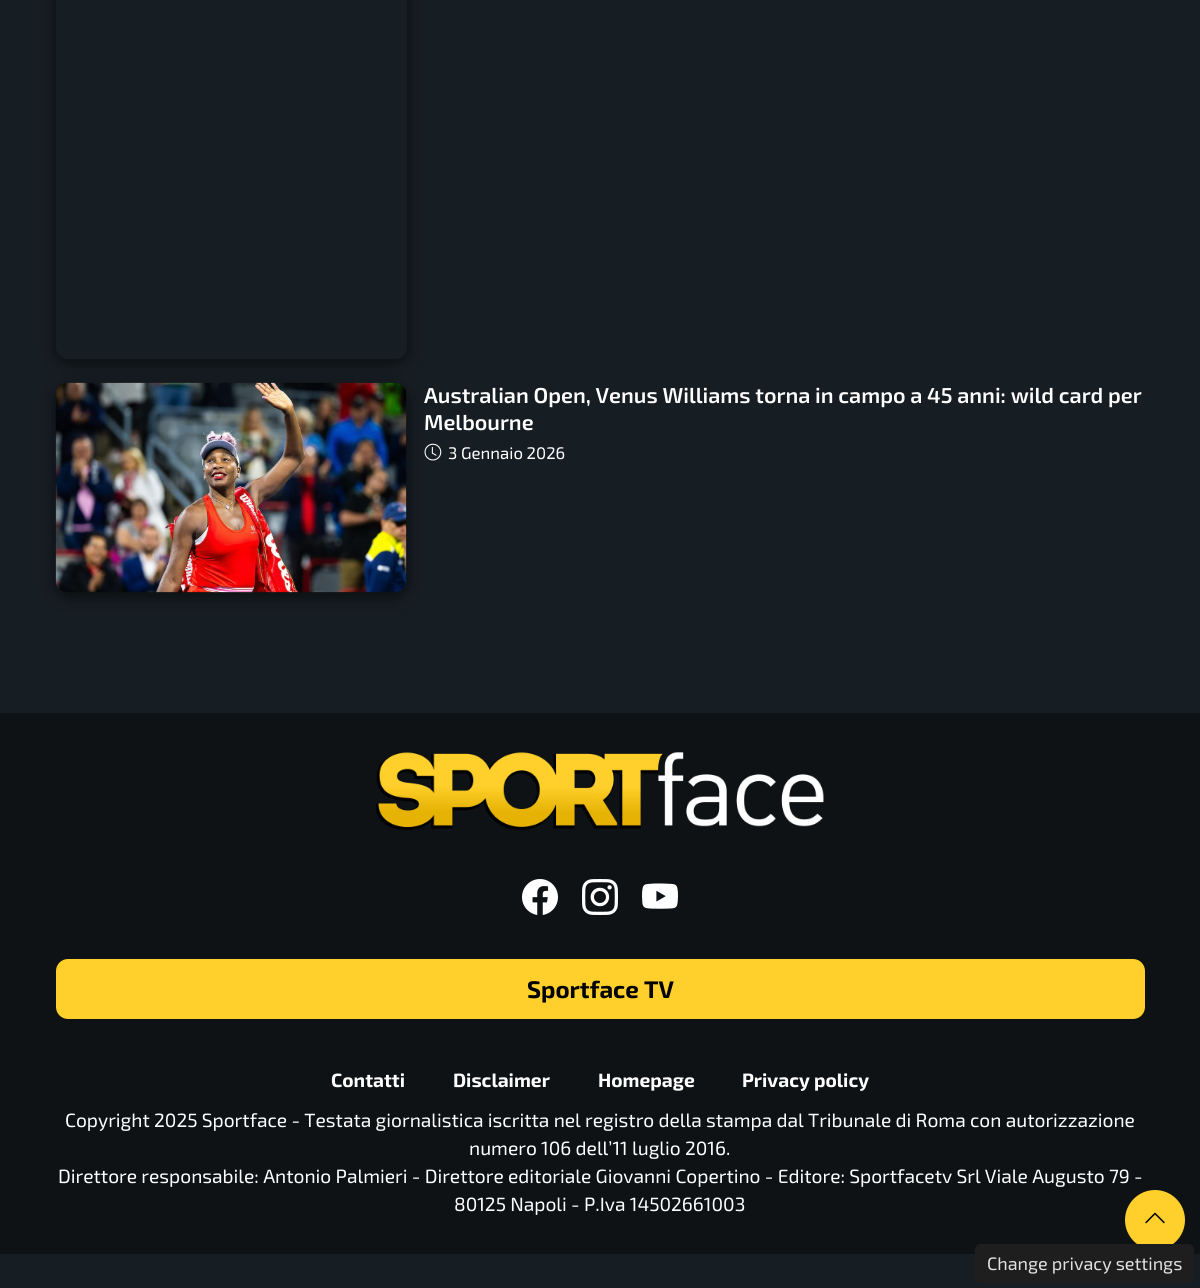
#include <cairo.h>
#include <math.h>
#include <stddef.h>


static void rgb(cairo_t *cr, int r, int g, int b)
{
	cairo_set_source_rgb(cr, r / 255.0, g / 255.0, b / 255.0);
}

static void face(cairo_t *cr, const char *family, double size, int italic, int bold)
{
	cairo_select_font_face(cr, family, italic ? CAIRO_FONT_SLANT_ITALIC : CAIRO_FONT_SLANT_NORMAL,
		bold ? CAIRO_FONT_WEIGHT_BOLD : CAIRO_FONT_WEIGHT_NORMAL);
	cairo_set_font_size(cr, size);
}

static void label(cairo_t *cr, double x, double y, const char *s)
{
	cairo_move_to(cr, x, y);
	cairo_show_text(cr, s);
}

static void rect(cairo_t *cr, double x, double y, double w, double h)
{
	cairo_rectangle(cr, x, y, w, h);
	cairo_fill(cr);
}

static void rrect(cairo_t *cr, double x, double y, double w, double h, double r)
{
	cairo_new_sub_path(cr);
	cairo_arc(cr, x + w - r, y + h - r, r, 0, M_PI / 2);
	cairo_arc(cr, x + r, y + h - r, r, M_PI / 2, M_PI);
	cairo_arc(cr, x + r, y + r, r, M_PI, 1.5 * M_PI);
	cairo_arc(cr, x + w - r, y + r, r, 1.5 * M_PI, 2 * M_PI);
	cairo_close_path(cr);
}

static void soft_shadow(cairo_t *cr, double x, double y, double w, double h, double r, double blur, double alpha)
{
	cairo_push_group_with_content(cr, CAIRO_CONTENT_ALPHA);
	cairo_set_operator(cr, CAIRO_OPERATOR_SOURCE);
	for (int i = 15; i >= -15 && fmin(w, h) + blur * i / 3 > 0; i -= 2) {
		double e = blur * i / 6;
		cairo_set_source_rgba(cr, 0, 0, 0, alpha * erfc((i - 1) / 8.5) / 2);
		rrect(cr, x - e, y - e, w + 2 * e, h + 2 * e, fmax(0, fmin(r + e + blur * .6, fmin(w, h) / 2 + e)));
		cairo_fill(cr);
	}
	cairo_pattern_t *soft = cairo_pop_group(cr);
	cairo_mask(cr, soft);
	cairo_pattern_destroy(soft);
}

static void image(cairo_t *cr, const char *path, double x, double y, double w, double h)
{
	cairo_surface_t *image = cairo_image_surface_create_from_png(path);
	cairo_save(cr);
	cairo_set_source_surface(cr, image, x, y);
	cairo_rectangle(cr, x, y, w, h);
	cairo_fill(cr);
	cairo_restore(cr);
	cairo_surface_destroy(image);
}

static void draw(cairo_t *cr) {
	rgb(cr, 23, 30, 35);
	cairo_paint(cr);
	cairo_save(cr);
	cairo_set_fill_rule(cr, CAIRO_FILL_RULE_EVEN_ODD);
	cairo_new_path(cr);
	cairo_move_to(cr, 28, 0);
	cairo_line_to(cr, 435, 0);
	cairo_line_to(cr, 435, 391);
	cairo_line_to(cr, 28, 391);
	cairo_close_path(cr);
	cairo_move_to(cr, 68, -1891);
	cairo_line_to(cr, 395, -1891);
	cairo_curve_to(cr, 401.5, -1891, 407, -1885.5, 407, -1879);
	cairo_line_to(cr, 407, 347);
	cairo_curve_to(cr, 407, 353.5, 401.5, 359, 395, 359);
	cairo_line_to(cr, 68, 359);
	cairo_curve_to(cr, 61.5, 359, 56, 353.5, 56, 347);
	cairo_line_to(cr, 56, -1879);
	cairo_curve_to(cr, 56, -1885.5, 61.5, -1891, 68, -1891);
	cairo_close_path(cr);
	cairo_clip(cr);
	rgb(cr, 0, 0, 0);
	soft_shadow(cr, 56, -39, 351, 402, 12, 9, 0.6);
	cairo_restore(cr);
	image(cr, "image1.png", 424, 443, 18, 18);
	rgb(cr, 0, 0, 0);
	soft_shadow(cr, 56, 387, 351, 210, 12, 9, 0.6);
	image(cr, "image0.png", 55, 382, 352, 211);
	face(cr, "Exo 2 SemiBold", 21.6, 0, 0);
	rgb(cr, 255, 255, 255);
	label(cr, 424, 403, "Australian Open, Venus Williams torna in campo a 45 anni: wild card per");
	label(cr, 424, 430, "Melbourne");
	face(cr, "Exo 2", 16.75, 0, 0);
	label(cr, 448, 459, "3 Gennaio 2026");
	rgb(cr, 14, 18, 21);
	rect(cr, 0, 713, 1200, 541);
	image(cr, "image2.png", 376, 752, 448, 78);
	image(cr, "image3.png", 522, 879, 36, 36);
	image(cr, "image4.png", 582, 879, 36, 36);
	image(cr, "image5.png", 642, 883, 36, 26);
	rgb(cr, 255, 208, 43);
	rrect(cr, 56, 959, 1089, 60, 12);
	cairo_fill(cr);
	face(cr, "Exo 2", 24, 0, 1);
	rgb(cr, 0, 0, 0);
	label(cr, 527, 998, "Sportface TV");
	face(cr, "Exo 2", 19.2, 0, 1);
	rgb(cr, 255, 255, 255);
	label(cr, 331, 1087, "Contatti");
	label(cr, 453, 1087, "Disclaimer");
	label(cr, 598, 1087, "Homepage");
	label(cr, 742, 1087, "Privacy policy");
	face(cr, "Exo 2", 19.2, 0, 0);
	label(cr, 65, 1127, "Copyright 2025 Sportface - Testata giornalistica iscritta nel registro della stampa dal Tribunale di Roma con autorizzazione");
	label(cr, 469, 1155, "numero 106 dell’11 luglio 2016.");
	label(cr, 58, 1183, "Direttore responsabile: Antonio Palmieri - Direttore editoriale Giovanni Copertino - Editore: Sportfacetv Srl Viale Augusto 79 -");
	label(cr, 454, 1211, "80125 Napoli - P.Iva 14502661003");
	rgb(cr, 255, 208, 43);
	cairo_new_path(cr);
	cairo_arc(cr, 1155, 1220, 30, 0, 2 * M_PI);
	cairo_fill(cr);
	image(cr, "image6.png", 1145, 1212, 20, 12);
	rgb(cr, 30, 30, 30);
	rrect(cr, 975, 1244, 219, 39, 6);
	cairo_fill(cr);
	face(cr, "Exo 2", 18, 0, 0);
	rgb(cr, 227, 225, 225);
	label(cr, 987, 1270, "Change privacy settings");
}

int main(void) {
	cairo_surface_t *surface = cairo_image_surface_create(CAIRO_FORMAT_RGB24, 1200, 1288);
	cairo_t *cr = cairo_create(surface);
	cairo_font_options_t *options = cairo_font_options_create();
	cairo_font_options_set_hint_metrics(options, CAIRO_HINT_METRICS_OFF);
	cairo_font_options_set_hint_style(options, CAIRO_HINT_STYLE_NONE);
	cairo_set_font_options(cr, options);
	cairo_set_miter_limit(cr, 4);
	draw(cr);
	cairo_surface_write_to_png(surface, "render.png");
	cairo_font_options_destroy(options);
	cairo_destroy(cr);
	cairo_surface_destroy(surface);
	return 0;
}
